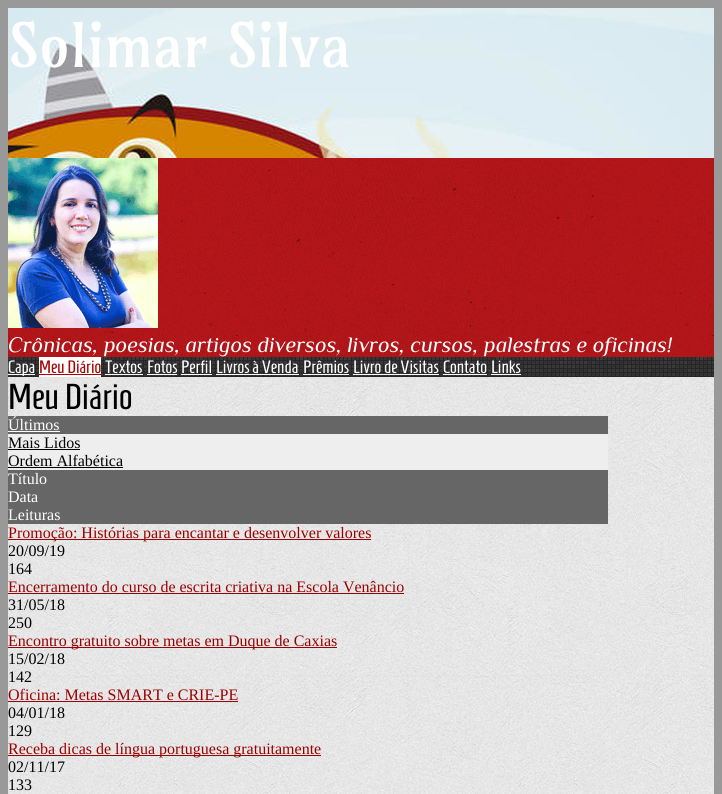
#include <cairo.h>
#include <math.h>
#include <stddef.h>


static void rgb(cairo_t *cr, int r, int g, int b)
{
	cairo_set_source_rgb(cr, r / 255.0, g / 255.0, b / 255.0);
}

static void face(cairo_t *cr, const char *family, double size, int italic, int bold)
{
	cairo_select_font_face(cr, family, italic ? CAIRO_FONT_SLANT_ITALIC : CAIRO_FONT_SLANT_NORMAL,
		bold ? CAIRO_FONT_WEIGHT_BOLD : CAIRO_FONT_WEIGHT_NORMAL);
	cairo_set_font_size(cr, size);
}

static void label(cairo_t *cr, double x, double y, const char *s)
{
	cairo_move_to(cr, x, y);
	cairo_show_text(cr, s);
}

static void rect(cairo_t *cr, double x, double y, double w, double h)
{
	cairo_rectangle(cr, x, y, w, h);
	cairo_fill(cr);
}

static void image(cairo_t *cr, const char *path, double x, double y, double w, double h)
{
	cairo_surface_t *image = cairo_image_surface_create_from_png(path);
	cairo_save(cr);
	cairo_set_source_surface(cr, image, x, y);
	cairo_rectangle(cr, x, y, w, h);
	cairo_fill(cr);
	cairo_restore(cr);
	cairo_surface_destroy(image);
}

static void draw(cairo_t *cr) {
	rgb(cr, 153, 153, 153);
	cairo_paint(cr);
	image(cr, "image0.png", 8, 8, 706, 150);
	face(cr, "Amarante", 60, 0, 0);
	rgb(cr, 255, 255, 255);
	label(cr, 8, 67, "Solimar Silva");
	image(cr, "image1.png", 8, 158, 706, 199);
	image(cr, "image2.png", 8, 158, 150, 170);
	face(cr, "Philosopher", 22, 1, 0);
	label(cr, 8, 352, "Crônicas, poesias, artigos diversos, livros, cursos, palestras e oficinas!");
	image(cr, "image3.png", 8, 357, 706, 20);
	rect(cr, 8, 374, 27, 1);
	face(cr, "Homenaje", 18, 0, 0);
	label(cr, 8, 373, "Capa");
	rect(cr, 39, 357, 62, 20);
	rgb(cr, 169, 0, 0);
	label(cr, 39, 373, "Meu Diário");
	rect(cr, 39, 374, 62, 1);
	rgb(cr, 255, 255, 255);
	label(cr, 105, 373, "Textos");
	rect(cr, 105, 374, 38, 1);
	label(cr, 147, 373, "Fotos");
	rect(cr, 147, 374, 30, 1);
	label(cr, 181, 373, "Perfil");
	rect(cr, 181, 374, 31, 1);
	label(cr, 216, 373, "Livros à Venda");
	rect(cr, 216, 374, 83, 1);
	label(cr, 303, 373, "Prêmios");
	rect(cr, 303, 374, 46, 1);
	label(cr, 353, 373, "Livro de Visitas");
	rect(cr, 353, 374, 86, 1);
	label(cr, 443, 373, "Contato");
	rect(cr, 443, 374, 44, 1);
	label(cr, 491, 373, "Links");
	rect(cr, 491, 374, 30, 1);
	image(cr, "image4.png", 8, 377, 706, 417);
	face(cr, "Homenaje", 36, 0, 0);
	rgb(cr, 0, 0, 0);
	label(cr, 8, 409, "Meu Diário");
	rgb(cr, 102, 102, 102);
	rect(cr, 8, 416, 600, 18);
	face(cr, "Liberation Serif", 16, 0, 0);
	rgb(cr, 255, 255, 255);
	label(cr, 8, 430, "Últimos");
	rect(cr, 8, 431, 52, 1);
	rgb(cr, 238, 238, 238);
	rect(cr, 8, 434, 600, 36);
	rgb(cr, 0, 0, 0);
	label(cr, 8, 448, "Mais Lidos");
	rect(cr, 8, 449, 72, 1);
	label(cr, 8, 466, "Ordem Alfabética");
	rect(cr, 8, 467, 115, 1);
	rgb(cr, 102, 102, 102);
	rect(cr, 8, 470, 600, 54);
	rgb(cr, 255, 255, 255);
	label(cr, 8, 484, "Título");
	label(cr, 8, 502, "Data");
	label(cr, 8, 520, "Leituras");
	rgb(cr, 153, 0, 0);
	rect(cr, 8, 539, 363, 1);
	label(cr, 8, 538, "Promoção: Histórias para encantar e desenvolver valores");
	rgb(cr, 0, 0, 0);
	label(cr, 8, 556, "20/09/19");
	label(cr, 8, 574, "164");
	rgb(cr, 153, 0, 0);
	label(cr, 8, 592, "Encerramento do curso de escrita criativa na Escola Venâncio");
	rect(cr, 8, 593, 396, 1);
	rgb(cr, 0, 0, 0);
	label(cr, 8, 610, "31/05/18");
	label(cr, 8, 628, "250");
	rgb(cr, 153, 0, 0);
	rect(cr, 8, 647, 329, 1);
	label(cr, 8, 646, "Encontro gratuito sobre metas em Duque de Caxias");
	rgb(cr, 0, 0, 0);
	label(cr, 8, 664, "15/02/18");
	label(cr, 8, 682, "142");
	rgb(cr, 153, 0, 0);
	label(cr, 8, 700, "Oficina: Metas SMART e CRIE-PE");
	rect(cr, 8, 701, 230, 1);
	rgb(cr, 0, 0, 0);
	label(cr, 8, 718, "04/01/18");
	label(cr, 8, 736, "129");
	rgb(cr, 153, 0, 0);
	rect(cr, 8, 755, 313, 1);
	label(cr, 8, 754, "Receba dicas de língua portuguesa gratuitamente");
	rgb(cr, 0, 0, 0);
	label(cr, 8, 772, "02/11/17");
	label(cr, 8, 790, "133");
}

int main(void) {
	cairo_surface_t *surface = cairo_image_surface_create(CAIRO_FORMAT_RGB24, 722, 794);
	cairo_t *cr = cairo_create(surface);
	cairo_font_options_t *options = cairo_font_options_create();
	cairo_font_options_set_hint_metrics(options, CAIRO_HINT_METRICS_OFF);
	cairo_font_options_set_hint_style(options, CAIRO_HINT_STYLE_NONE);
	cairo_set_font_options(cr, options);
	cairo_set_miter_limit(cr, 4);
	draw(cr);
	cairo_surface_write_to_png(surface, "render.png");
	cairo_font_options_destroy(options);
	cairo_destroy(cr);
	cairo_surface_destroy(surface);
	return 0;
}
